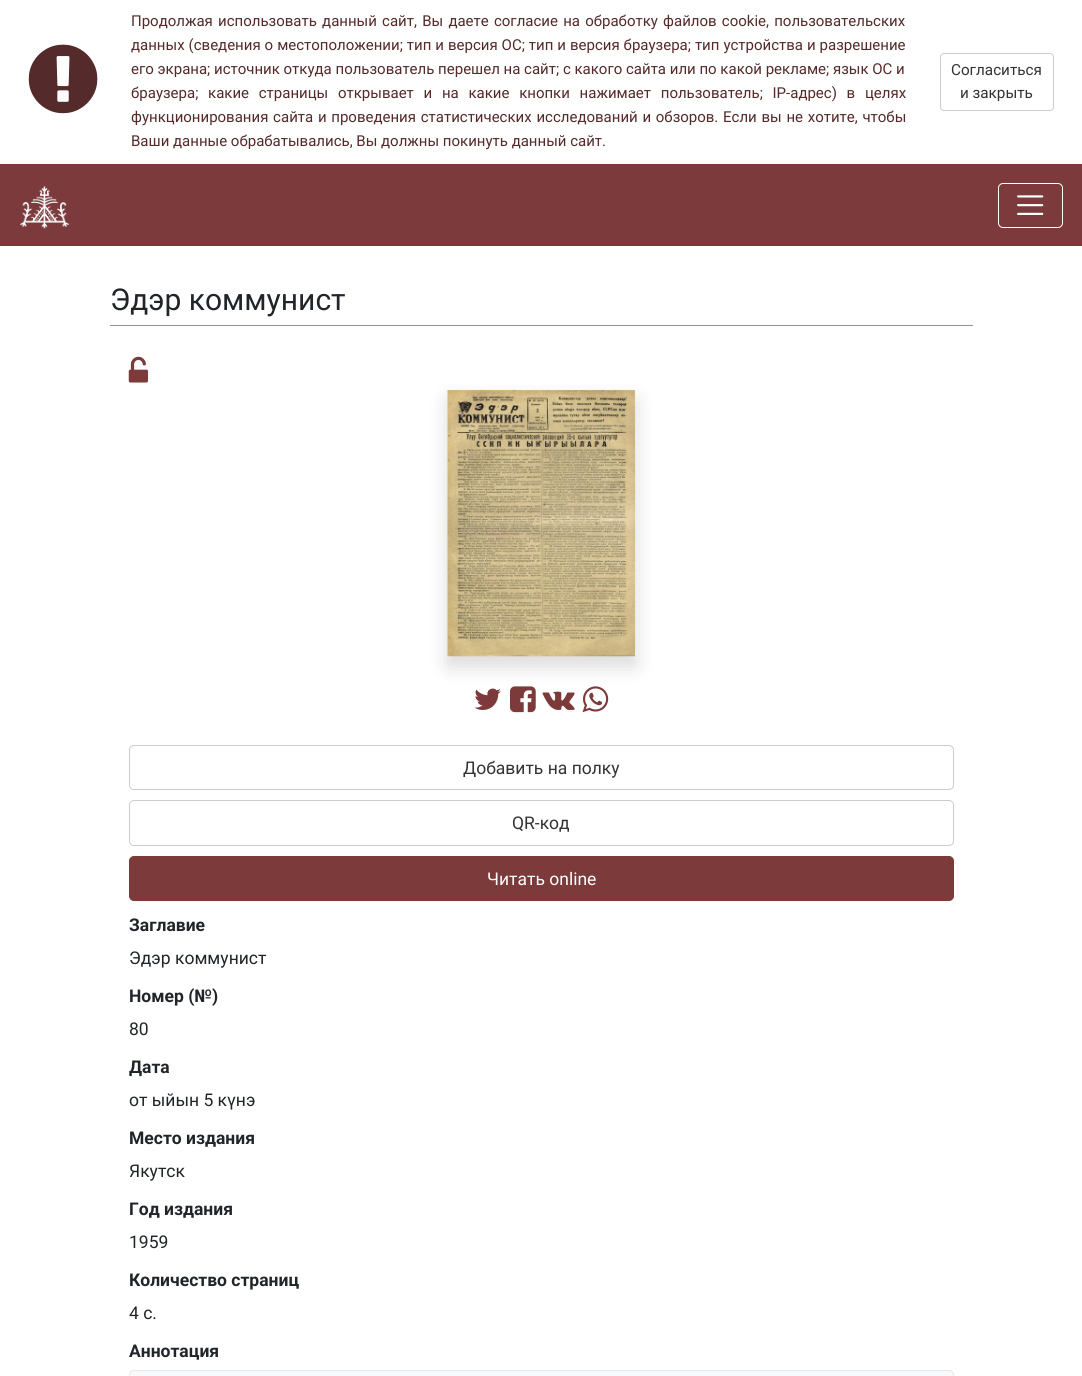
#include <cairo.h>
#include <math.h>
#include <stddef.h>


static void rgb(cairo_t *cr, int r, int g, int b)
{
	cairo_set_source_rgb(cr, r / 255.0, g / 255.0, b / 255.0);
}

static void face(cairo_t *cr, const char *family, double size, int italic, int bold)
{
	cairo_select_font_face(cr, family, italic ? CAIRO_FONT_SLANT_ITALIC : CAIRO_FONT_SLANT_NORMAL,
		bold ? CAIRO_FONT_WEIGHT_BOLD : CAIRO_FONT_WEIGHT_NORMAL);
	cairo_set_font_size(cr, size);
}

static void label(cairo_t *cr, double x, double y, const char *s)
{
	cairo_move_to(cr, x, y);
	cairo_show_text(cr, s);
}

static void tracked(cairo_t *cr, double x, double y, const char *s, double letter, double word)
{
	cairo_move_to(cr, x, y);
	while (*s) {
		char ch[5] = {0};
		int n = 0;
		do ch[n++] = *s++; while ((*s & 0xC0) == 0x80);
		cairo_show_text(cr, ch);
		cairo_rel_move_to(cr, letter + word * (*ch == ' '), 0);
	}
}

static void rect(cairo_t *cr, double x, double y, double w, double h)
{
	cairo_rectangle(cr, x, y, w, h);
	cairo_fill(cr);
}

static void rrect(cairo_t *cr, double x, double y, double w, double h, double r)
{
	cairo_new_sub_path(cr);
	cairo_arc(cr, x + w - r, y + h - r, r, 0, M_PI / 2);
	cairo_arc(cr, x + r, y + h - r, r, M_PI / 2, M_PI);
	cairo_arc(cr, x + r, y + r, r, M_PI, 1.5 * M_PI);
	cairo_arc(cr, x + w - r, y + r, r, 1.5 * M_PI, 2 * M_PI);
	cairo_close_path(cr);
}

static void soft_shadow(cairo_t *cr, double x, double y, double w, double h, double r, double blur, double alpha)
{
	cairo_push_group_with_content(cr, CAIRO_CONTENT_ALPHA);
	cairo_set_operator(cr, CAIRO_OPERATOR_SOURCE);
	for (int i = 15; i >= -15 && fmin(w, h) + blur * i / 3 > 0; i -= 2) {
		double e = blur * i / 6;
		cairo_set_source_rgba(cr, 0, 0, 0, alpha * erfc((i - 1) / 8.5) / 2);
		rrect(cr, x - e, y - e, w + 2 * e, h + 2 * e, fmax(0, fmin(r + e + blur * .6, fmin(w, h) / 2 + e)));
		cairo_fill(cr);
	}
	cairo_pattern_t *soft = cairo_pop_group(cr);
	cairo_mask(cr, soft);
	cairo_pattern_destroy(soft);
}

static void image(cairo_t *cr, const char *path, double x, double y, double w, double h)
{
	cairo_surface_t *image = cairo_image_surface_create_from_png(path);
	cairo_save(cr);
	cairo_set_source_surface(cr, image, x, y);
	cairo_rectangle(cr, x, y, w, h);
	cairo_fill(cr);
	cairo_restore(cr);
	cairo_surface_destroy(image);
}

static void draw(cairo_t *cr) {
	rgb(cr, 255, 255, 255);
	cairo_paint(cr);
	image(cr, "image0.png", 28, 44, 70, 70);
	face(cr, "Roboto", 15, 0, 0);
	rgb(cr, 84, 42, 42);
	tracked(cr, 131, 26, "Продолжая использовать данный сайт, Вы даете согласие на обработку файлов cookie, пользовательских", 0, 1.5);
	tracked(cr, 131, 50, "данных (сведения о местоположении; тип и версия ОС; тип и версия браузера; тип устройства и разрешение", 0, 0.25);
	label(cr, 131, 74, "его экрана; источник откуда пользователь перешел на сайт; с какого сайта или по какой рекламе; язык ОС и");
	tracked(cr, 131, 98, "браузера; какие страницы открывает и на какие кнопки нажимает пользователь; IP-адрес) в целях", 0, 6);
	tracked(cr, 131, 122, "функционирования сайта и проведения статистических исследований и обзоров. Если вы не хотите, чтобы", 0, 1);
	label(cr, 131, 146, "Ваши данные обрабатывались, Вы должны покинуть данный сайт.");
	rrect(cr, 940.5, 53.5, 113, 57, 3.5);
	rgb(cr, 204, 204, 204);
	cairo_set_line_width(cr, 1);
	cairo_stroke(cr);
	face(cr, "Roboto", 15.25, 0, 0);
	rgb(cr, 51, 51, 51);
	label(cr, 951, 75, "Согласиться");
	label(cr, 960, 98, "и закрыть");
	rgb(cr, 124, 58, 60);
	rect(cr, 0, 164, 1082, 82);
	image(cr, "image1.png", 20, 186, 49, 43);
	rrect(cr, 998.5, 183.5, 64, 44, 4.5);
	rgb(cr, 255, 255, 255);
	cairo_stroke(cr);
	image(cr, "image2.png", 1017, 195, 27, 20);
	rgb(cr, 167, 139, 139);
	rect(cr, 110, 325, 863, 1);
	face(cr, "Roboto", 30, 0, 0);
	rgb(cr, 33, 37, 41);
	label(cr, 110, 310, "Эдэр коммунист");
	image(cr, "image3.png", 128, 356, 21, 27);
	rgb(cr, 0, 0, 0);
	soft_shadow(cr, 448, 400, 187, 266, 0, 10, 0.15);
	image(cr, "image4.png", 447, 390, 188, 267);
	image(cr, "image5.png", 474, 688, 27, 22);
	image(cr, "image6.png", 510, 686, 26, 27);
	image(cr, "image7.png", 542, 691, 33, 19);
	image(cr, "image8.png", 582, 686, 27, 27);
	rrect(cr, 129.5, 745.5, 824, 44, 4.5);
	rgb(cr, 204, 204, 204);
	cairo_stroke(cr);
	face(cr, "Roboto", 17.5, 0, 0);
	rgb(cr, 51, 51, 51);
	label(cr, 463, 774, "Добавить на полку");
	rrect(cr, 129.5, 800.5, 824, 45, 4.5);
	rgb(cr, 204, 204, 204);
	cairo_stroke(cr);
	rgb(cr, 51, 51, 51);
	label(cr, 512, 829, "QR-код");
	rgb(cr, 124, 58, 58);
	rrect(cr, 129.5, 856.5, 824, 44, 4.5);
	cairo_fill_preserve(cr);
	cairo_stroke(cr);
	rgb(cr, 255, 255, 255);
	label(cr, 487, 885, "Читать online");
	face(cr, "Roboto", 17.5, 0, 1);
	rgb(cr, 33, 37, 41);
	label(cr, 129, 931, "Заглавие");
	face(cr, "Roboto", 17.5, 0, 0);
	label(cr, 129, 964, "Эдэр коммунист");
	face(cr, "Roboto", 17.5, 0, 1);
	label(cr, 129, 1002, "Номер (№)");
	face(cr, "Roboto", 17.5, 0, 0);
	label(cr, 129, 1035, "80");
	face(cr, "Roboto", 17.5, 0, 1);
	label(cr, 129, 1073, "Дата");
	face(cr, "Roboto", 17.5, 0, 0);
	label(cr, 129, 1106, "от ыйын 5 күнэ");
	face(cr, "Roboto", 17.5, 0, 1);
	label(cr, 129, 1144, "Место издания");
	face(cr, "Roboto", 17.5, 0, 0);
	label(cr, 129, 1177, "Якутск");
	face(cr, "Roboto", 17.5, 0, 1);
	label(cr, 129, 1215, "Год издания");
	face(cr, "Roboto", 17.5, 0, 0);
	label(cr, 129, 1248, "1959");
	face(cr, "Roboto", 17.5, 0, 1);
	label(cr, 129, 1286, "Количество страниц");
	face(cr, "Roboto", 17.5, 0, 0);
	label(cr, 129, 1319, "4 с.");
	face(cr, "Roboto", 17.5, 0, 1);
	label(cr, 129, 1357, "Аннотация");
	rgb(cr, 248, 249, 250);
	rrect(cr, 129.5, 1370.5, 824, 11, 4.5);
	cairo_fill_preserve(cr);
	rgb(cr, 230, 230, 230);
	cairo_stroke(cr);
}

int main(void) {
	cairo_surface_t *surface = cairo_image_surface_create(CAIRO_FORMAT_RGB24, 1082, 1376);
	cairo_t *cr = cairo_create(surface);
	cairo_font_options_t *options = cairo_font_options_create();
	cairo_font_options_set_hint_metrics(options, CAIRO_HINT_METRICS_OFF);
	cairo_font_options_set_hint_style(options, CAIRO_HINT_STYLE_NONE);
	cairo_set_font_options(cr, options);
	cairo_set_miter_limit(cr, 4);
	draw(cr);
	cairo_surface_write_to_png(surface, "render.png");
	cairo_font_options_destroy(options);
	cairo_destroy(cr);
	cairo_surface_destroy(surface);
	return 0;
}
